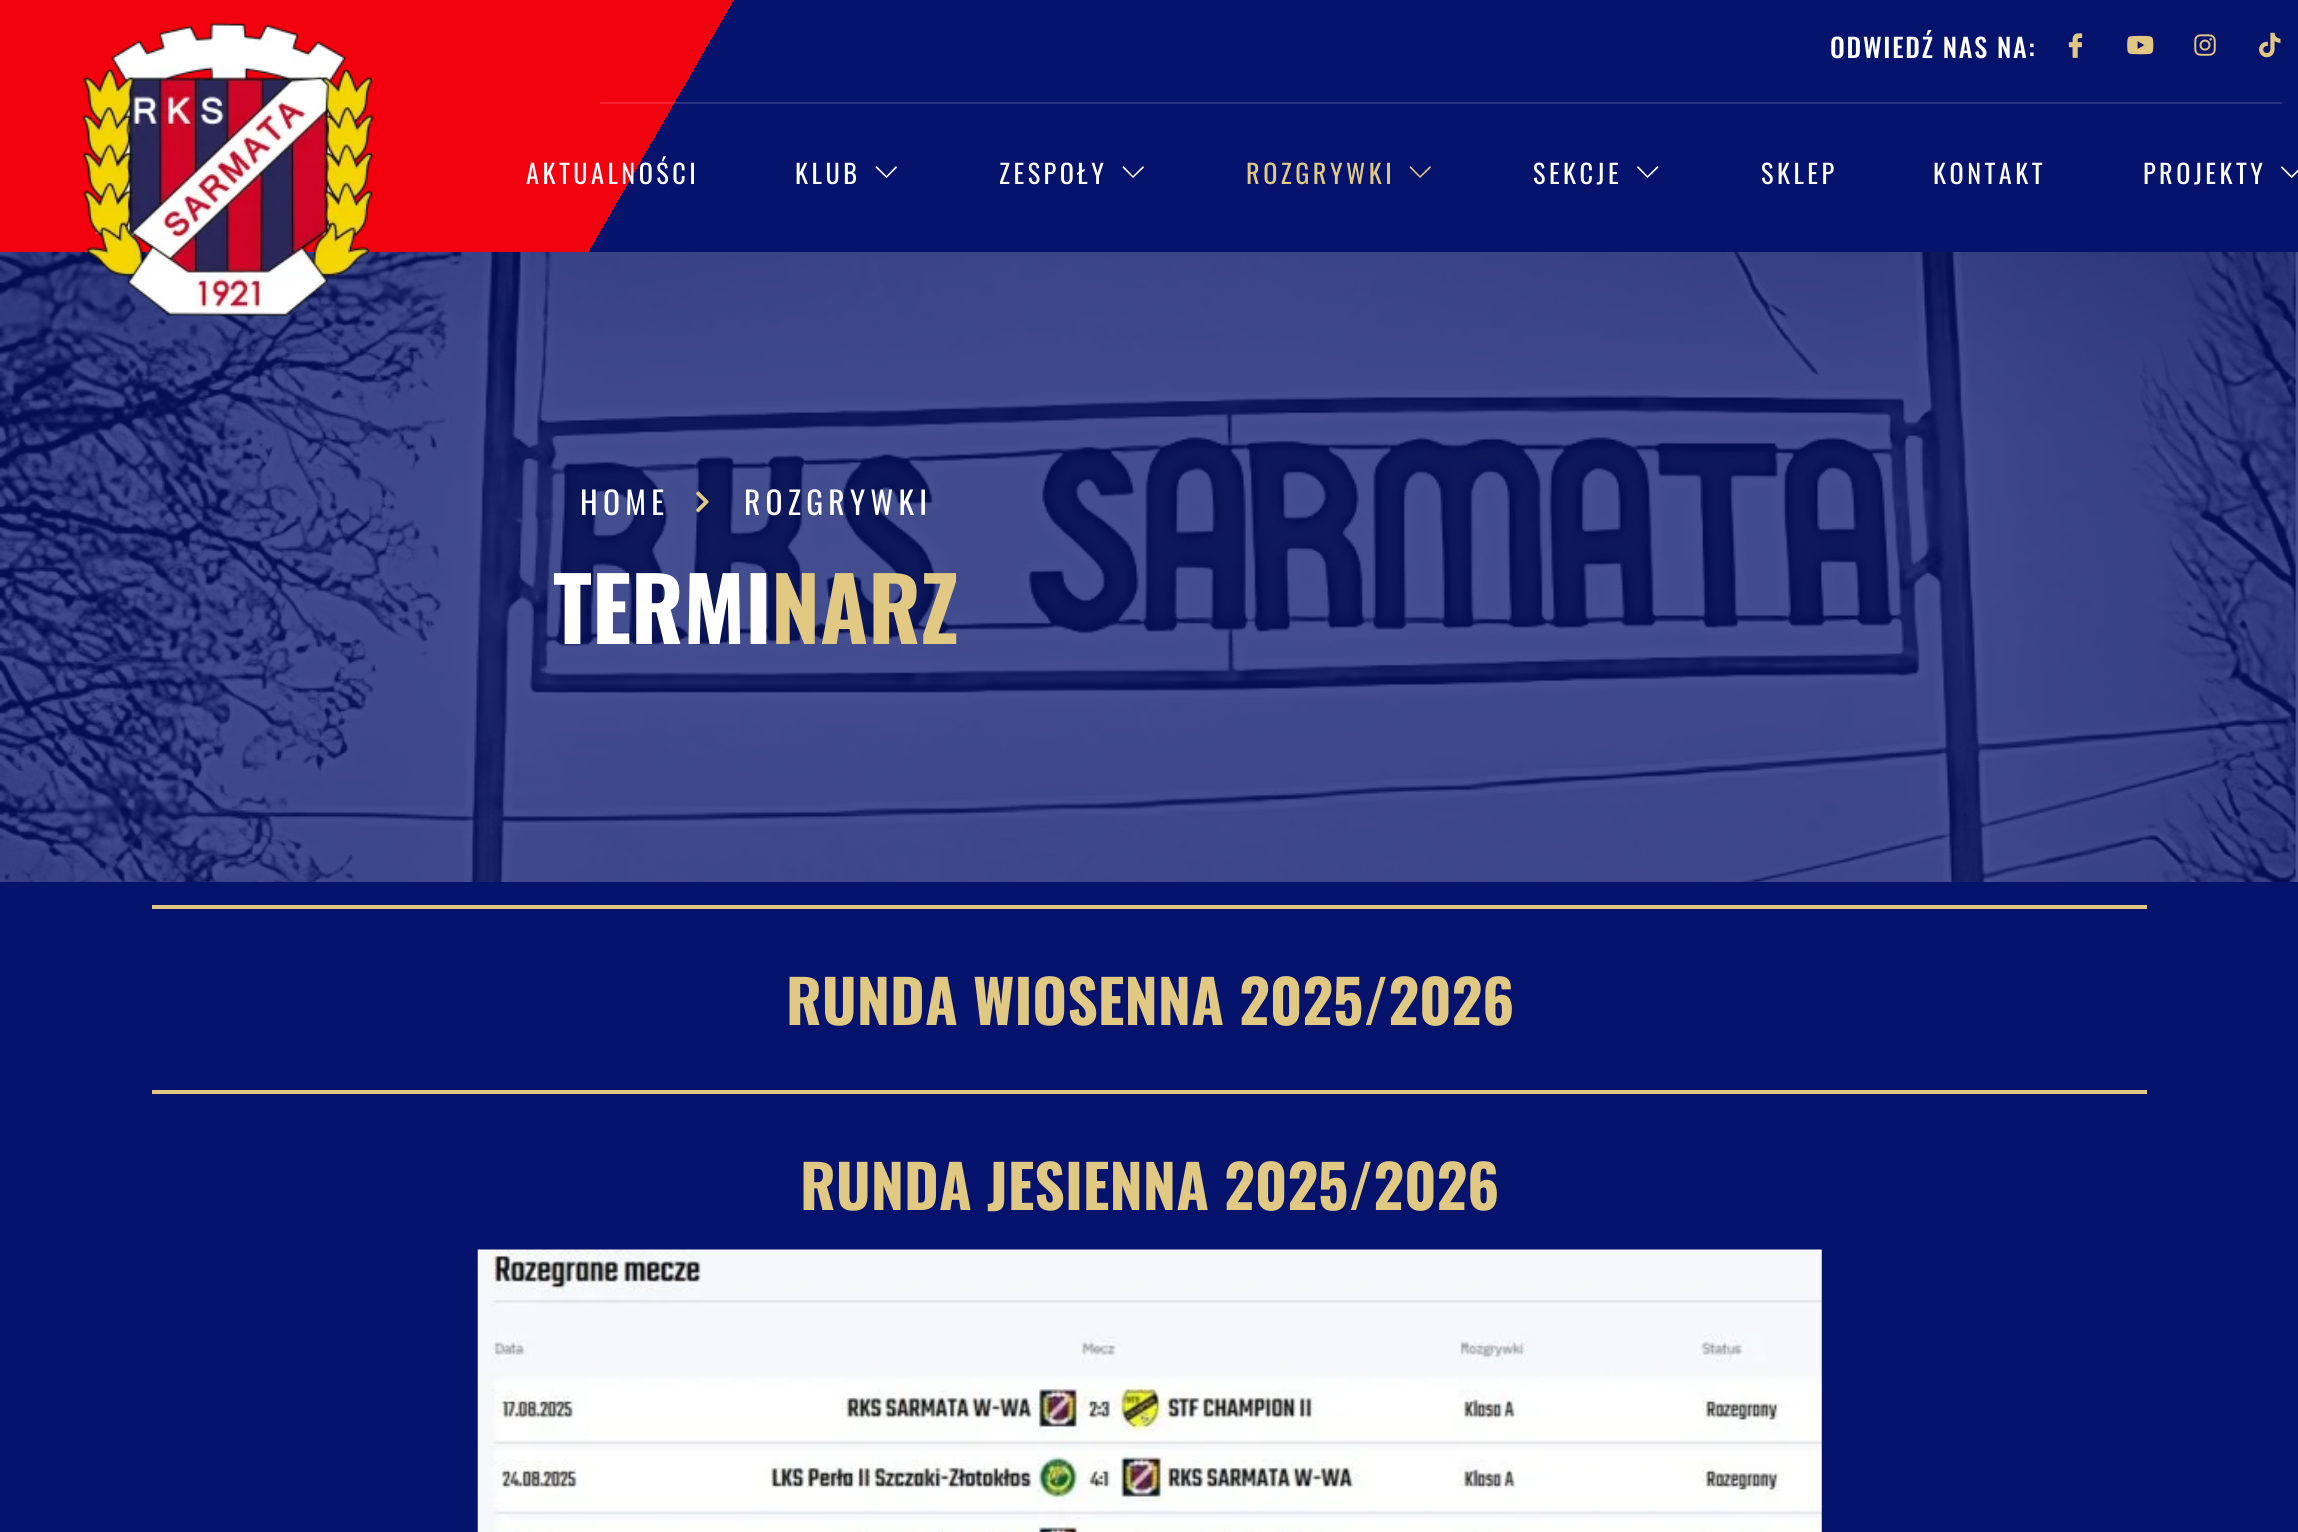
#include <cairo.h>
#include <math.h>
#include <stddef.h>


static void rgb(cairo_t *cr, int r, int g, int b)
{
	cairo_set_source_rgb(cr, r / 255.0, g / 255.0, b / 255.0);
}

static void face(cairo_t *cr, const char *family, double size, int italic, int bold)
{
	cairo_select_font_face(cr, family, italic ? CAIRO_FONT_SLANT_ITALIC : CAIRO_FONT_SLANT_NORMAL,
		bold ? CAIRO_FONT_WEIGHT_BOLD : CAIRO_FONT_WEIGHT_NORMAL);
	cairo_set_font_size(cr, size);
}

static void label(cairo_t *cr, double x, double y, const char *s)
{
	cairo_move_to(cr, x, y);
	cairo_show_text(cr, s);
}

static void tracked(cairo_t *cr, double x, double y, const char *s, double letter, double word)
{
	cairo_move_to(cr, x, y);
	while (*s) {
		char ch[5] = {0};
		int n = 0;
		do ch[n++] = *s++; while ((*s & 0xC0) == 0x80);
		cairo_show_text(cr, ch);
		cairo_rel_move_to(cr, letter + word * (*ch == ' '), 0);
	}
}

static void rect(cairo_t *cr, double x, double y, double w, double h)
{
	cairo_rectangle(cr, x, y, w, h);
	cairo_fill(cr);
}

static void image(cairo_t *cr, const char *path, double x, double y, double w, double h)
{
	cairo_surface_t *image = cairo_image_surface_create_from_png(path);
	cairo_save(cr);
	cairo_set_source_surface(cr, image, x, y);
	cairo_rectangle(cr, x, y, w, h);
	cairo_fill(cr);
	cairo_restore(cr);
	cairo_surface_destroy(image);
}

static void draw(cairo_t *cr) {
	cairo_pattern_t *gradient;
	rgb(cr, 5, 19, 108);
	cairo_paint(cr);
	gradient = cairo_pattern_create_linear(2067, 655, 233, -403);
	cairo_pattern_add_color_stop_rgba(gradient, 0.7, 0.02, 0.075, 0.424, 1);
	cairo_pattern_add_color_stop_rgba(gradient, 0.7, 0.949, 0.008, 0.059, 1);
	cairo_set_source(cr, gradient);
	cairo_pattern_destroy(gradient);
	rect(cr, 0, 0, 734, 252);
	gradient = cairo_pattern_create_linear(2067, 655, 233, -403);
	cairo_pattern_add_color_stop_rgba(gradient, 0.7, 0.149, 0.196, 0.498, 1);
	cairo_pattern_add_color_stop_rgba(gradient, 0.7, 0.957, 0.137, 0.18, 1);
	cairo_set_source(cr, gradient);
	cairo_pattern_destroy(gradient);
	rect(cr, 600, 102, 1682, 2);
	image(cr, "image6.png", 0, 252, 2298, 630);
	image(cr, "image0.png", 81, 22, 293, 294);
	face(cr, "Oswald Medium", 26.25, 0, 0);
	rgb(cr, 255, 255, 255);
	tracked(cr, 1830, 58, "ODWIEDŹ NAS NA:", 1.75, 0);
	image(cr, "image1.png", 2068, 33, 15, 25);
	image(cr, "image2.png", 2127, 35, 27, 20);
	image(cr, "image3.png", 2194, 34, 22, 22);
	image(cr, "image4.png", 2259, 32, 22, 26);
	face(cr, "Oswald", 26.25, 0, 0);
	tracked(cr, 526, 184, "AKTUALNOŚCI", 3.5, 0);
	tracked(cr, 795, 184, "KLUB", 3.5, 0);
	cairo_new_path(cr);
	cairo_move_to(cr, 876.5, 166);
	cairo_line_to(cr, 875.5, 167.5);
	cairo_line_to(cr, 886.5, 178);
	cairo_line_to(cr, 897, 167.5);
	cairo_line_to(cr, 896, 166);
	cairo_line_to(cr, 886.5, 176);
	cairo_close_path(cr);
	cairo_fill(cr);
	tracked(cr, 999, 184, "ZESPOŁY", 3.5, 0);
	cairo_new_path(cr);
	cairo_move_to(cr, 1123.5, 166);
	cairo_line_to(cr, 1122.5, 167.5);
	cairo_line_to(cr, 1133, 178);
	cairo_line_to(cr, 1144, 167.5);
	cairo_line_to(cr, 1143, 166);
	cairo_line_to(cr, 1133, 176);
	cairo_close_path(cr);
	cairo_fill(cr);
	rgb(cr, 225, 201, 131);
	tracked(cr, 1246, 184, "ROZGRYWKI", 3.5, 0);
	cairo_new_path(cr);
	cairo_move_to(cr, 1410.5, 166);
	cairo_line_to(cr, 1409.5, 167.5);
	cairo_line_to(cr, 1420, 178);
	cairo_line_to(cr, 1431, 167.5);
	cairo_line_to(cr, 1430, 166);
	cairo_line_to(cr, 1420, 176);
	cairo_close_path(cr);
	cairo_fill(cr);
	rgb(cr, 255, 255, 255);
	tracked(cr, 1533, 184, "SEKCJE", 3.5, 0);
	cairo_new_path(cr);
	cairo_move_to(cr, 1638, 166);
	cairo_line_to(cr, 1637, 167.5);
	cairo_line_to(cr, 1647.5, 178);
	cairo_line_to(cr, 1658.5, 167.5);
	cairo_line_to(cr, 1657.5, 166);
	cairo_line_to(cr, 1647.5, 176);
	cairo_close_path(cr);
	cairo_fill(cr);
	tracked(cr, 1761, 184, "SKLEP", 3.5, 0);
	tracked(cr, 1933, 184, "KONTAKT", 3.5, 0);
	tracked(cr, 2143, 184, "PROJEKTY", 3.5, 0);
	image(cr, "image5.png", 2280, 166, 18, 13);
	face(cr, "Oswald", 31.5, 0, 0);
	tracked(cr, 580, 515, "HOME", 5.25, 0);
	image(cr, "image7.png", 696, 491, 13, 22);
	tracked(cr, 744, 515, "ROZGRYWKI", 5.25, 0);
	face(cr, "Oswald", 87.5, 0, 1);
	label(cr, 553, 644, "TERMI");
	rgb(cr, 225, 201, 131);
	label(cr, 771, 644, "NARZ");
	rect(cr, 152, 905, 1995, 4);
	face(cr, "Oswald", 59.5, 0, 1);
	label(cr, 786, 1025, "RUNDA WIOSENNA 2025/2026");
	rect(cr, 152, 1090, 1995, 4);
	label(cr, 800, 1210, "RUNDA JESIENNA 2025/2026");
	image(cr, "image8.png", 477, 1249, 1345, 283);
}

int main(void) {
	cairo_surface_t *surface = cairo_image_surface_create(CAIRO_FORMAT_RGB24, 2298, 1532);
	cairo_t *cr = cairo_create(surface);
	cairo_font_options_t *options = cairo_font_options_create();
	cairo_font_options_set_hint_metrics(options, CAIRO_HINT_METRICS_OFF);
	cairo_font_options_set_hint_style(options, CAIRO_HINT_STYLE_NONE);
	cairo_set_font_options(cr, options);
	cairo_set_miter_limit(cr, 4);
	draw(cr);
	cairo_surface_write_to_png(surface, "render.png");
	cairo_font_options_destroy(options);
	cairo_destroy(cr);
	cairo_surface_destroy(surface);
	return 0;
}
